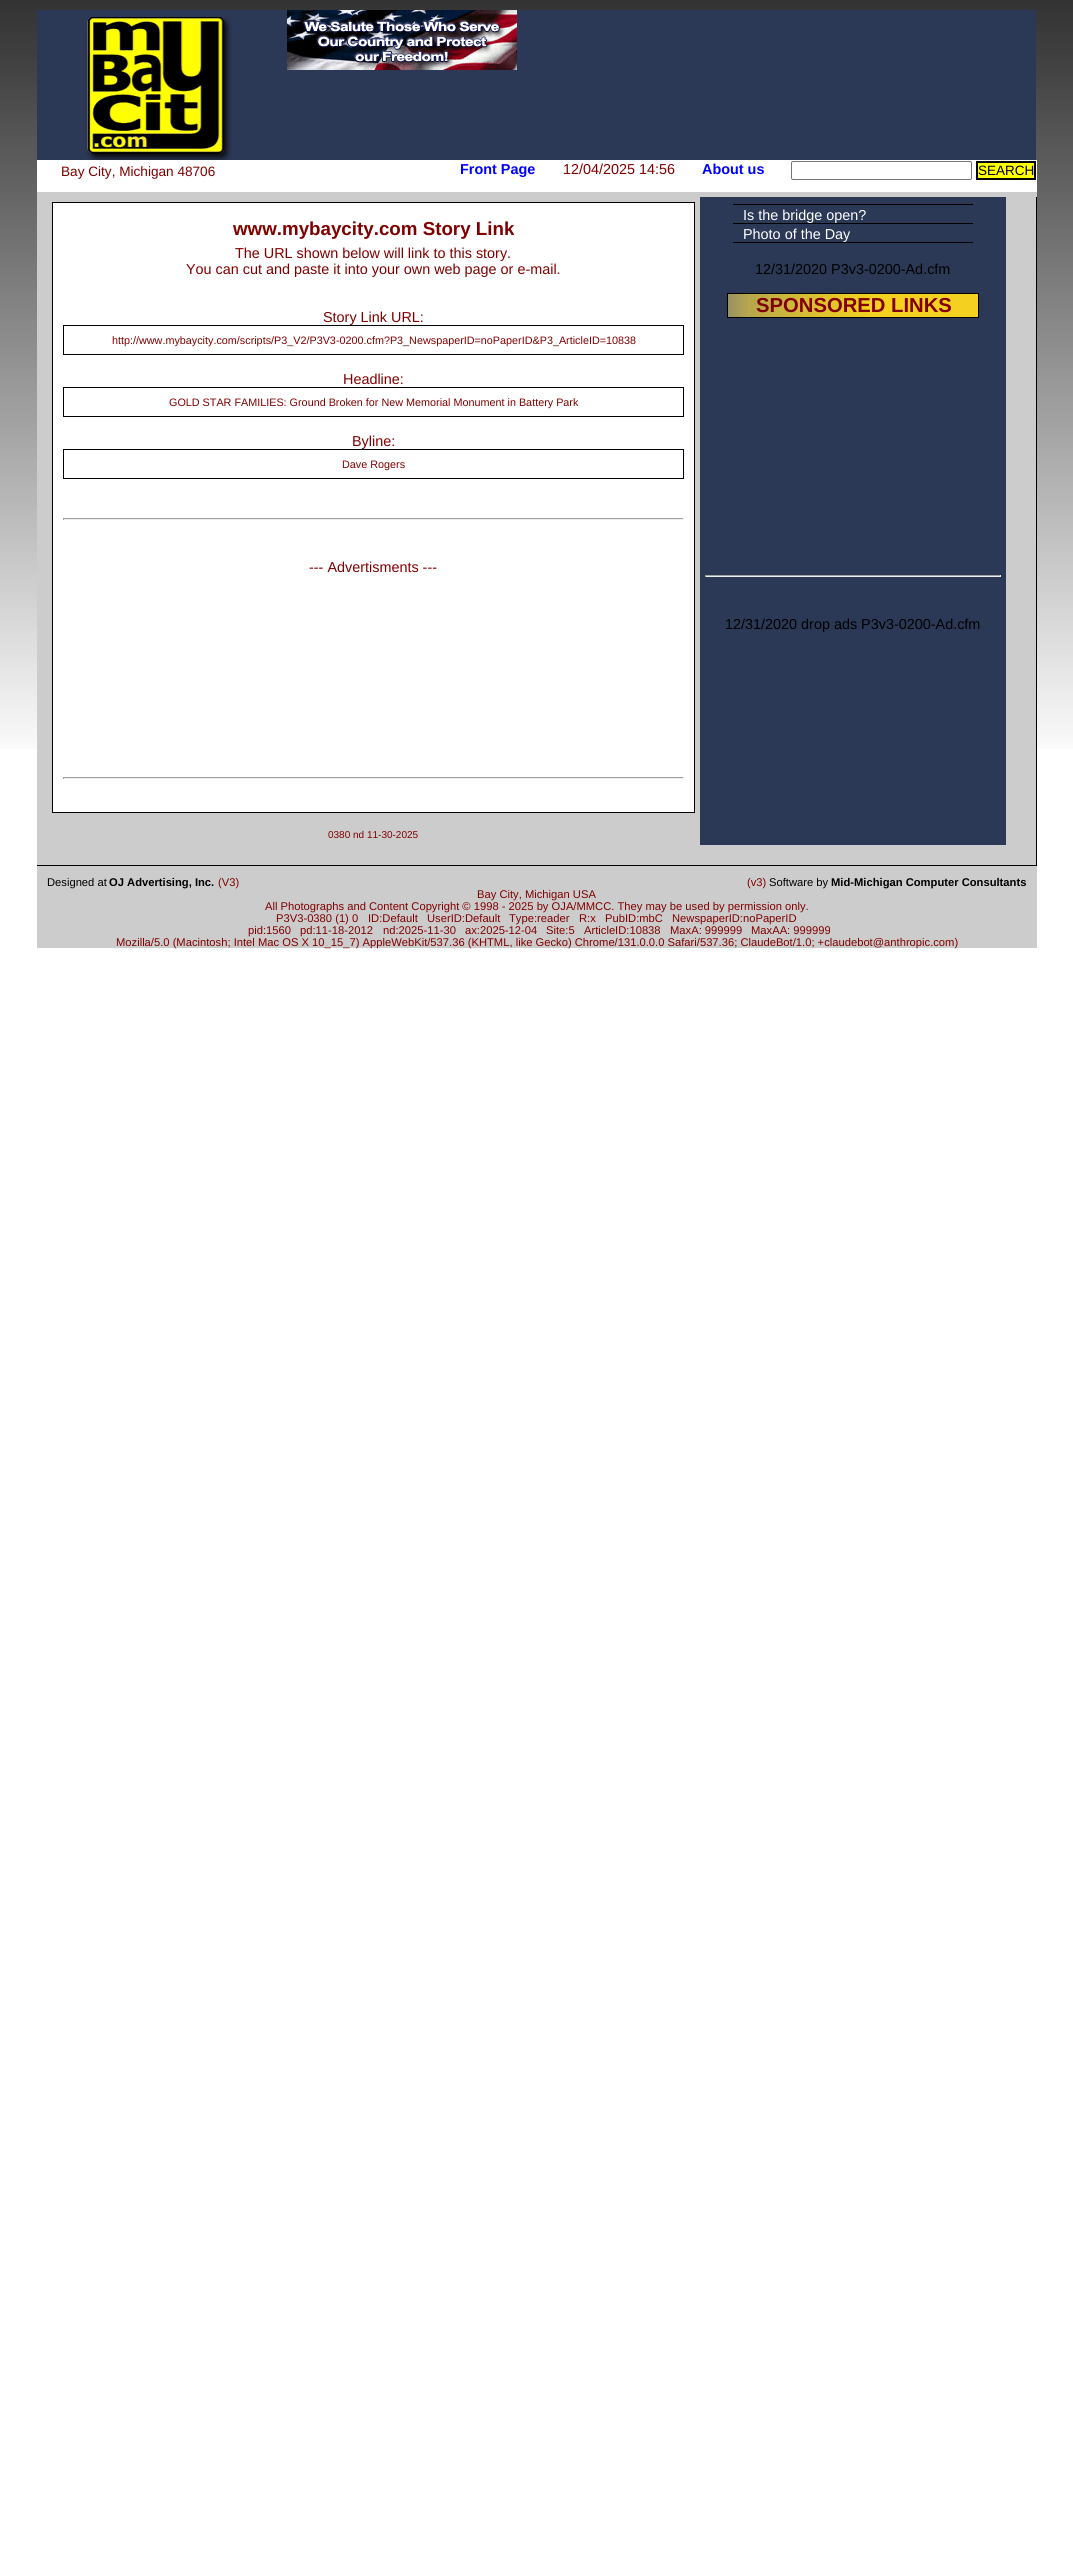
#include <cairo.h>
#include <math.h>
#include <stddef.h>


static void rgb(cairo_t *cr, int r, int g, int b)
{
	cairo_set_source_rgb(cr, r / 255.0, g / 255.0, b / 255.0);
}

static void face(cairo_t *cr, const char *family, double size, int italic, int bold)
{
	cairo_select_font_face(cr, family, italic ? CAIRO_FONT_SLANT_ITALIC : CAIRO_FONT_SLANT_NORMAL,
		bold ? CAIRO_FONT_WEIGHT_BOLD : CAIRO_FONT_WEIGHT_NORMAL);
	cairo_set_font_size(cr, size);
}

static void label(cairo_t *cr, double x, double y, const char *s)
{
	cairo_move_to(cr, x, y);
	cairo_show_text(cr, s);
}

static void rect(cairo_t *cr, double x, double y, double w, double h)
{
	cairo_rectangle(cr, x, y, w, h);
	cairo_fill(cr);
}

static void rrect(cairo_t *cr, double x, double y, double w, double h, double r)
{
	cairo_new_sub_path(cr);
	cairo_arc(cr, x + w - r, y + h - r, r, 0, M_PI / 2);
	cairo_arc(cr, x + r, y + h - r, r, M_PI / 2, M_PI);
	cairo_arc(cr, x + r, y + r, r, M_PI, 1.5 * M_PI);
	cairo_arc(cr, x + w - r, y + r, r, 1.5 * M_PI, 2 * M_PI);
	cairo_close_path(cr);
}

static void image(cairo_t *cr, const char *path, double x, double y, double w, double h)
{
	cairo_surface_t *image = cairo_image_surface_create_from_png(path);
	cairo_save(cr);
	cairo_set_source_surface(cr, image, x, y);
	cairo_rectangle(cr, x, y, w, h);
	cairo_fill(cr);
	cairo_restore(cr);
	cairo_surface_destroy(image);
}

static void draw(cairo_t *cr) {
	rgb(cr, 255, 255, 255);
	cairo_paint(cr);
	image(cr, "image0.png", 0, 0, 1073, 749);
	image(cr, "image1.png", 37, 10, 999, 150);
	image(cr, "image2.png", 287, 10, 230, 60);
	rgb(cr, 255, 255, 255);
	rect(cr, 37, 160, 1000, 32);
	face(cr, "Liberation Sans", 13.6, 0, 0);
	rgb(cr, 128, 0, 0);
	label(cr, 61, 176, "Bay City, Michigan 48706");
	face(cr, "Liberation Sans", 14.4, 0, 1);
	rgb(cr, 0, 0, 255);
	label(cr, 460, 174, "Front Page");
	face(cr, "Liberation Sans", 14.4, 0, 0);
	rgb(cr, 128, 0, 0);
	label(cr, 563, 174, "12/04/2025 14:56");
	face(cr, "Liberation Sans", 14.4, 0, 1);
	rgb(cr, 0, 0, 255);
	label(cr, 702, 174, "About us");
	rrect(cr, 791.5, 161.5, 180, 18, 1.5);
	rgb(cr, 118, 118, 118);
	cairo_set_line_width(cr, 1);
	cairo_stroke(cr);
	rgb(cr, 255, 255, 0);
	cairo_rectangle(cr, 977, 162, 58, 17);
	cairo_fill_preserve(cr);
	rgb(cr, 0, 0, 0);
	cairo_set_line_width(cr, 2);
	cairo_stroke(cr);
	face(cr, "Liberation Sans", 13.5, 0, 0);
	label(cr, 978, 175, "SEARCH");
	rgb(cr, 204, 204, 204);
	rect(cr, 37, 192, 1000, 756);
	rgb(cr, 0, 0, 0);
	rect(cr, 1036, 197, 1, 668);
	rgb(cr, 255, 255, 255);
	cairo_rectangle(cr, 52.5, 202.5, 642, 610);
	cairo_fill_preserve(cr);
	rgb(cr, 0, 0, 0);
	cairo_set_line_width(cr, 1);
	cairo_stroke(cr);
	face(cr, "Liberation Sans", 18.75, 0, 1);
	rgb(cr, 128, 0, 0);
	label(cr, 233, 235, "www.mybaycity.com Story Link");
	face(cr, "Liberation Sans", 14.4, 0, 0);
	label(cr, 235, 258, "The URL shown below will link to this story.");
	label(cr, 186, 274, "You can cut and paste it into your own web page or e-mail.");
	label(cr, 323, 322, "Story Link URL:");
	cairo_rectangle(cr, 63.5, 325.5, 620, 29);
	rgb(cr, 0, 0, 0);
	cairo_stroke(cr);
	face(cr, "Liberation Sans", 10.8, 0, 0);
	rgb(cr, 128, 0, 0);
	label(cr, 112, 344, "http://www.mybaycity.com/scripts/P3_V2/P3V3-0200.cfm?P3_NewspaperID=noPaperID&P3_ArticleID=10838");
	face(cr, "Liberation Sans", 14.4, 0, 0);
	label(cr, 343, 384, "Headline:");
	cairo_rectangle(cr, 63.5, 387.5, 620, 29);
	rgb(cr, 0, 0, 0);
	cairo_stroke(cr);
	face(cr, "Liberation Sans", 10.8, 0, 0);
	rgb(cr, 128, 0, 0);
	label(cr, 169, 406, "GOLD STAR FAMILIES: Ground Broken for New Memorial Monument in Battery Park");
	face(cr, "Liberation Sans", 14.4, 0, 0);
	label(cr, 352, 446, "Byline:");
	cairo_rectangle(cr, 63.5, 449.5, 620, 29);
	rgb(cr, 0, 0, 0);
	cairo_stroke(cr);
	face(cr, "Liberation Sans", 10.8, 0, 0);
	rgb(cr, 128, 0, 0);
	label(cr, 342, 468, "Dave Rogers");
	rgb(cr, 159, 159, 159);
	rect(cr, 63, 518, 621, 1);
	rgb(cr, 238, 238, 238);
	rect(cr, 683, 518, 1, 2);
	rect(cr, 63, 519, 621, 1);
	rgb(cr, 159, 159, 159);
	rect(cr, 63, 518, 1, 2);
	face(cr, "Liberation Sans", 14.4, 0, 0);
	rgb(cr, 128, 0, 0);
	label(cr, 309, 572, "--- Advertisments ---");
	rgb(cr, 159, 159, 159);
	rect(cr, 63, 777, 621, 1);
	rgb(cr, 238, 238, 238);
	rect(cr, 683, 777, 1, 2);
	rect(cr, 63, 778, 621, 1);
	rgb(cr, 159, 159, 159);
	rect(cr, 63, 777, 1, 2);
	face(cr, "Liberation Sans", 10, 0, 0);
	rgb(cr, 128, 0, 0);
	label(cr, 328, 838, "0380 nd 11-30-2025");
	rgb(cr, 43, 56, 86);
	rect(cr, 700, 197, 306, 648);
	rgb(cr, 0, 0, 0);
	rect(cr, 733, 204, 240, 1);
	rect(cr, 733, 223, 240, 1);
	face(cr, "Liberation Sans", 14.4, 0, 0);
	rgb(cr, 255, 255, 255);
	label(cr, 743, 220, "Is the bridge open?");
	rgb(cr, 0, 0, 0);
	rect(cr, 733, 242, 240, 1);
	rgb(cr, 255, 255, 255);
	label(cr, 743, 239, "Photo of the Day");
	rgb(cr, 0, 0, 0);
	label(cr, 755, 274, "12/31/2020 P3v3-0200-Ad.cfm");
	rgb(cr, 244, 208, 32);
	rect(cr, 867, 294, 111, 23);
	image(cr, "image3.png", 728, 294, 139, 23);
	cairo_rectangle(cr, 727.5, 293.5, 251, 24);
	rgb(cr, 0, 0, 0);
	cairo_stroke(cr);
	face(cr, "Liberation Sans", 20.25, 0, 1);
	rgb(cr, 128, 0, 0);
	label(cr, 756, 312, "SPONSORED LINKS");
	rgb(cr, 159, 159, 159);
	rect(cr, 705, 575, 296, 1);
	rgb(cr, 238, 238, 238);
	rect(cr, 1000, 575, 1, 2);
	rect(cr, 705, 576, 296, 1);
	rgb(cr, 159, 159, 159);
	rect(cr, 705, 575, 1, 2);
	face(cr, "Liberation Sans", 14.4, 0, 0);
	rgb(cr, 0, 0, 0);
	label(cr, 725, 629, "12/31/2020 drop ads P3v3-0200-Ad.cfm");
	rect(cr, 37, 865, 1000, 1);
	face(cr, "Liberation Sans", 11.2, 0, 0);
	label(cr, 47, 886, "Designed at");
	face(cr, "Liberation Sans", 11.2, 0, 1);
	label(cr, 109, 886, "OJ Advertising, Inc.");
	face(cr, "Liberation Sans", 11.2, 0, 0);
	rgb(cr, 128, 0, 0);
	label(cr, 218, 886, "(V3)");
	label(cr, 747, 886, "(v3)");
	rgb(cr, 0, 0, 0);
	label(cr, 769, 886, "Software by");
	face(cr, "Liberation Sans", 11.2, 0, 1);
	label(cr, 831, 886, "Mid-Michigan Computer Consultants");
	face(cr, "Liberation Sans", 11.2, 0, 0);
	rgb(cr, 128, 0, 0);
	label(cr, 477, 898, "Bay City, Michigan USA");
	label(cr, 265, 910, "All Photographs and Content Copyright © 1998 - 2025 by OJA/MMCC. They may be used by permission only.");
	label(cr, 276, 922, "P3V3-0380 (1) 0");
	label(cr, 368, 922, "ID:Default");
	label(cr, 427, 922, "UserID:Default");
	label(cr, 509, 922, "Type:reader");
	label(cr, 579, 922, "R:x");
	label(cr, 605, 922, "PubID:mbC");
	label(cr, 672, 922, "NewspaperID:noPaperID");
	label(cr, 248, 934, "pid:1560");
	label(cr, 300, 934, "pd:11-18-2012");
	label(cr, 383, 934, "nd:2025-11-30");
	label(cr, 465, 934, "ax:2025-12-04");
	label(cr, 546, 934, "Site:5");
	label(cr, 584, 934, "ArticleID:10838");
	label(cr, 670, 934, "MaxA: 999999");
	label(cr, 751, 934, "MaxAA: 999999");
	label(cr, 116, 946, "Mozilla/5.0 (Macintosh; Intel Mac OS X 10_15_7) AppleWebKit/537.36 (KHTML, like Gecko) Chrome/131.0.0.0 Safari/537.36; ClaudeBot/1.0; +claudebot@anthropic.com)");
}

int main(void) {
	cairo_surface_t *surface = cairo_image_surface_create(CAIRO_FORMAT_RGB24, 1073, 2561);
	cairo_t *cr = cairo_create(surface);
	cairo_font_options_t *options = cairo_font_options_create();
	cairo_font_options_set_hint_metrics(options, CAIRO_HINT_METRICS_OFF);
	cairo_font_options_set_hint_style(options, CAIRO_HINT_STYLE_NONE);
	cairo_set_font_options(cr, options);
	cairo_set_miter_limit(cr, 4);
	draw(cr);
	cairo_surface_write_to_png(surface, "render.png");
	cairo_font_options_destroy(options);
	cairo_destroy(cr);
	cairo_surface_destroy(surface);
	return 0;
}
